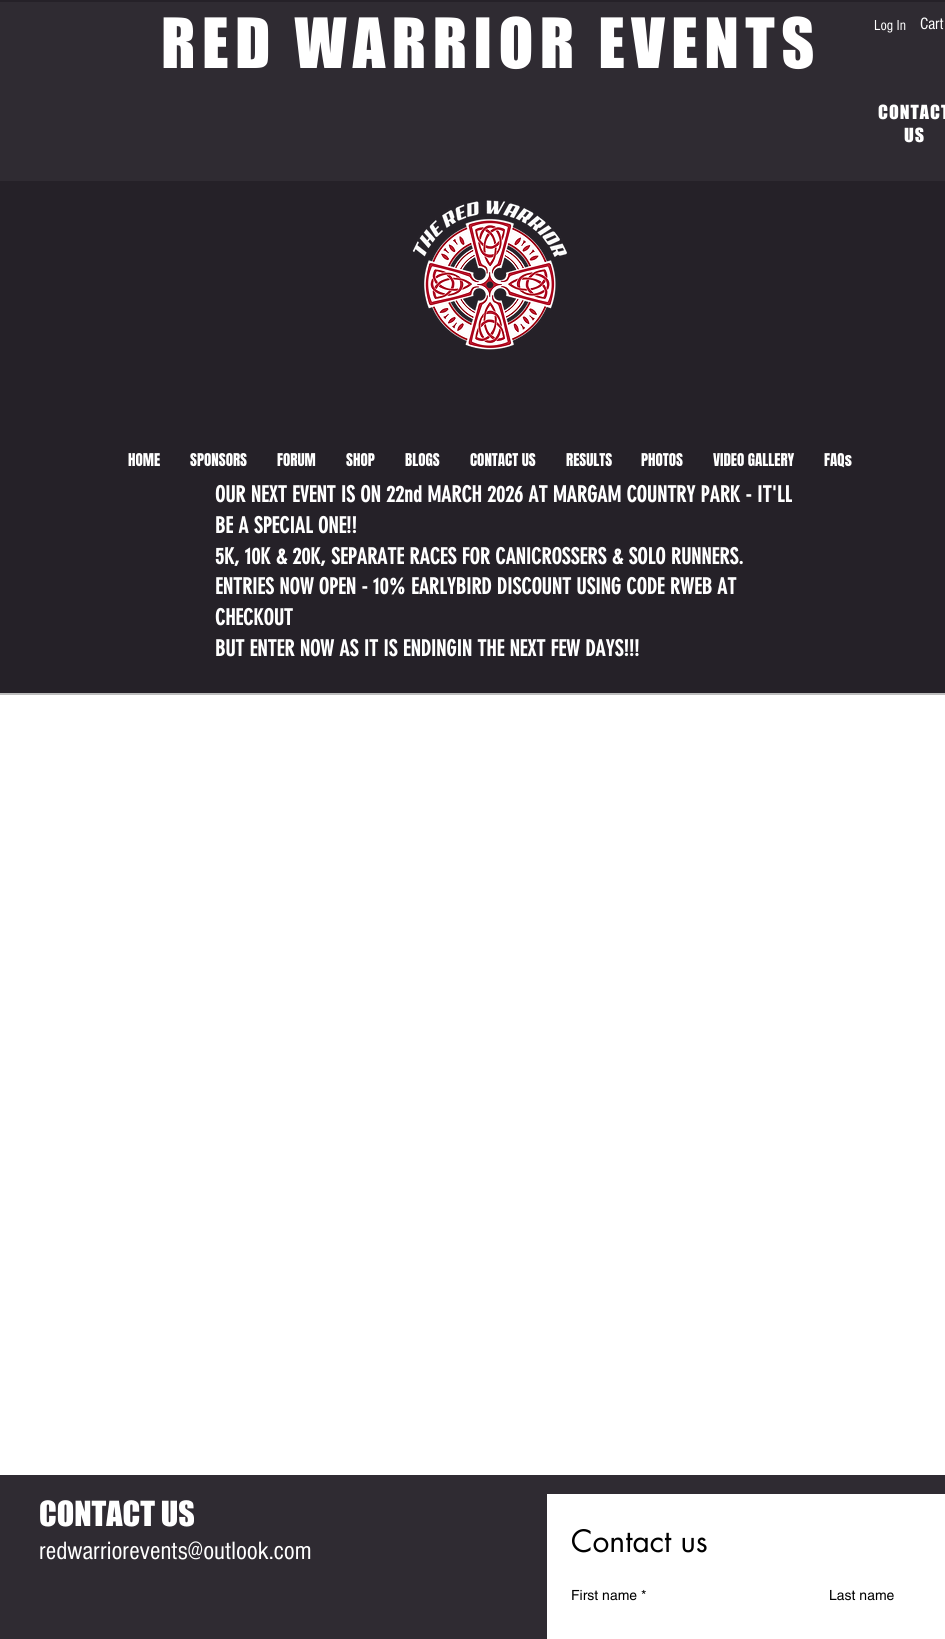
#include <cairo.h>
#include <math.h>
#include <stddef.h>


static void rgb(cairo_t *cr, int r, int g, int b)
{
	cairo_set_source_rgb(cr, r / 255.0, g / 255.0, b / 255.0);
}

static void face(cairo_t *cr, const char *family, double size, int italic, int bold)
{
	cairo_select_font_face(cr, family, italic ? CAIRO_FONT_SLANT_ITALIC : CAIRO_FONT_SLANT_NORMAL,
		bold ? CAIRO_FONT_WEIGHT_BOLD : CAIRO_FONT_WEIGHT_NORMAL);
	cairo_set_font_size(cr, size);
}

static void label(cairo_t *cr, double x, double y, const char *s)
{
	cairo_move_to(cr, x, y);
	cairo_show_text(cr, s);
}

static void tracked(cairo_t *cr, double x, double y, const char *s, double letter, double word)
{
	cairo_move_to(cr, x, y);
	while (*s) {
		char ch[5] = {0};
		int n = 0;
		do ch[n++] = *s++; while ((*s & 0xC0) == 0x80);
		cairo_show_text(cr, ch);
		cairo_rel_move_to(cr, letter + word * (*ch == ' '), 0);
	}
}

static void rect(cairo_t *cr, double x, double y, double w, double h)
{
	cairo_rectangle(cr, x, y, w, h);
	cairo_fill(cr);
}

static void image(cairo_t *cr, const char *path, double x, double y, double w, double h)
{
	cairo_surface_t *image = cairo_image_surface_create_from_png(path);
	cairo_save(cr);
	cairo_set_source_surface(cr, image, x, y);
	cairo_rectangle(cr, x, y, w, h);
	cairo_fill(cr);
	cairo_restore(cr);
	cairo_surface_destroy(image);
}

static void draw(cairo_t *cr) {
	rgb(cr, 255, 255, 255);
	cairo_paint(cr);
	rgb(cr, 189, 189, 189);
	rect(cr, 0, 693, 945, 2);
	rgb(cr, 37, 33, 40);
	rect(cr, 0, 0, 945, 693);
	rgb(cr, 47, 43, 50);
	rect(cr, 0, 2, 945, 179);
	face(cr, "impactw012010", 64, 0, 0);
	rgb(cr, 255, 255, 255);
	tracked(cr, 161, 68, "RED WARRIOR EVENTS", 6.4, 0);
	face(cr, "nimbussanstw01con", 15, 0, 0);
	label(cr, 874, 30, "Log In");
	face(cr, "nimbussanstw01con", 17, 0, 0);
	label(cr, 920, 29, "Cart");
	face(cr, "impactw012010", 18, 0, 0);
	tracked(cr, 878, 119, "CONTACT", 1, 0);
	tracked(cr, 904, 142, "US", 1, 0);
	image(cr, "image0.png", 412, 200, 156, 150);
	face(cr, "Anton", 15, 0, 0);
	label(cr, 128, 466, "HOME");
	label(cr, 190, 466, "SPONSORS");
	label(cr, 277, 466, "FORUM");
	label(cr, 346, 466, "SHOP");
	label(cr, 405, 466, "BLOGS");
	label(cr, 470, 466, "CONTACT US");
	label(cr, 566, 466, "RESULTS");
	label(cr, 641, 466, "PHOTOS");
	label(cr, 713, 466, "VIDEO GALLERY");
	label(cr, 824, 466, "FAQs");
	face(cr, "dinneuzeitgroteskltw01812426", 22, 0, 1);
	label(cr, 215, 502, "OUR NEXT EVENT IS ON 22nd MARCH 2026 AT MARGAM COUNTRY PARK - IT'LL");
	label(cr, 215, 533, "BE A SPECIAL ONE!!");
	label(cr, 215, 564, "5K, 10K & 20K, SEPARATE RACES FOR CANICROSSERS & SOLO RUNNERS.");
	label(cr, 215, 594, "ENTRIES NOW OPEN - 10% EARLYBIRD DISCOUNT USING CODE RWEB AT");
	label(cr, 215, 625, "CHECKOUT");
	label(cr, 215, 656, "BUT ENTER NOW AS IT IS ENDINGIN THE NEXT FEW DAYS!!!");
	rgb(cr, 47, 43, 50);
	rect(cr, 0, 1475, 945, 164);
	face(cr, "impactw012010", 32, 0, 0);
	rgb(cr, 255, 255, 255);
	label(cr, 39, 1526, "CONTACT US");
	face(cr, "nimbussanstw01con", 26, 0, 0);
	label(cr, 39, 1559, "redwarriorevents@outlook.com");
	rect(cr, 547, 1494, 398, 145);
	face(cr, "futura", 30, 0, 0);
	rgb(cr, 0, 0, 0);
	label(cr, 571, 1552, "Contact us");
	face(cr, "helvetica", 14, 0, 0);
	label(cr, 571, 1600, "First name *");
	label(cr, 829, 1600, "Last name");
}

int main(void) {
	cairo_surface_t *surface = cairo_image_surface_create(CAIRO_FORMAT_RGB24, 945, 1639);
	cairo_t *cr = cairo_create(surface);
	cairo_font_options_t *options = cairo_font_options_create();
	cairo_font_options_set_hint_metrics(options, CAIRO_HINT_METRICS_OFF);
	cairo_font_options_set_hint_style(options, CAIRO_HINT_STYLE_NONE);
	cairo_set_font_options(cr, options);
	cairo_set_miter_limit(cr, 4);
	draw(cr);
	cairo_surface_write_to_png(surface, "render.png");
	cairo_font_options_destroy(options);
	cairo_destroy(cr);
	cairo_surface_destroy(surface);
	return 0;
}
